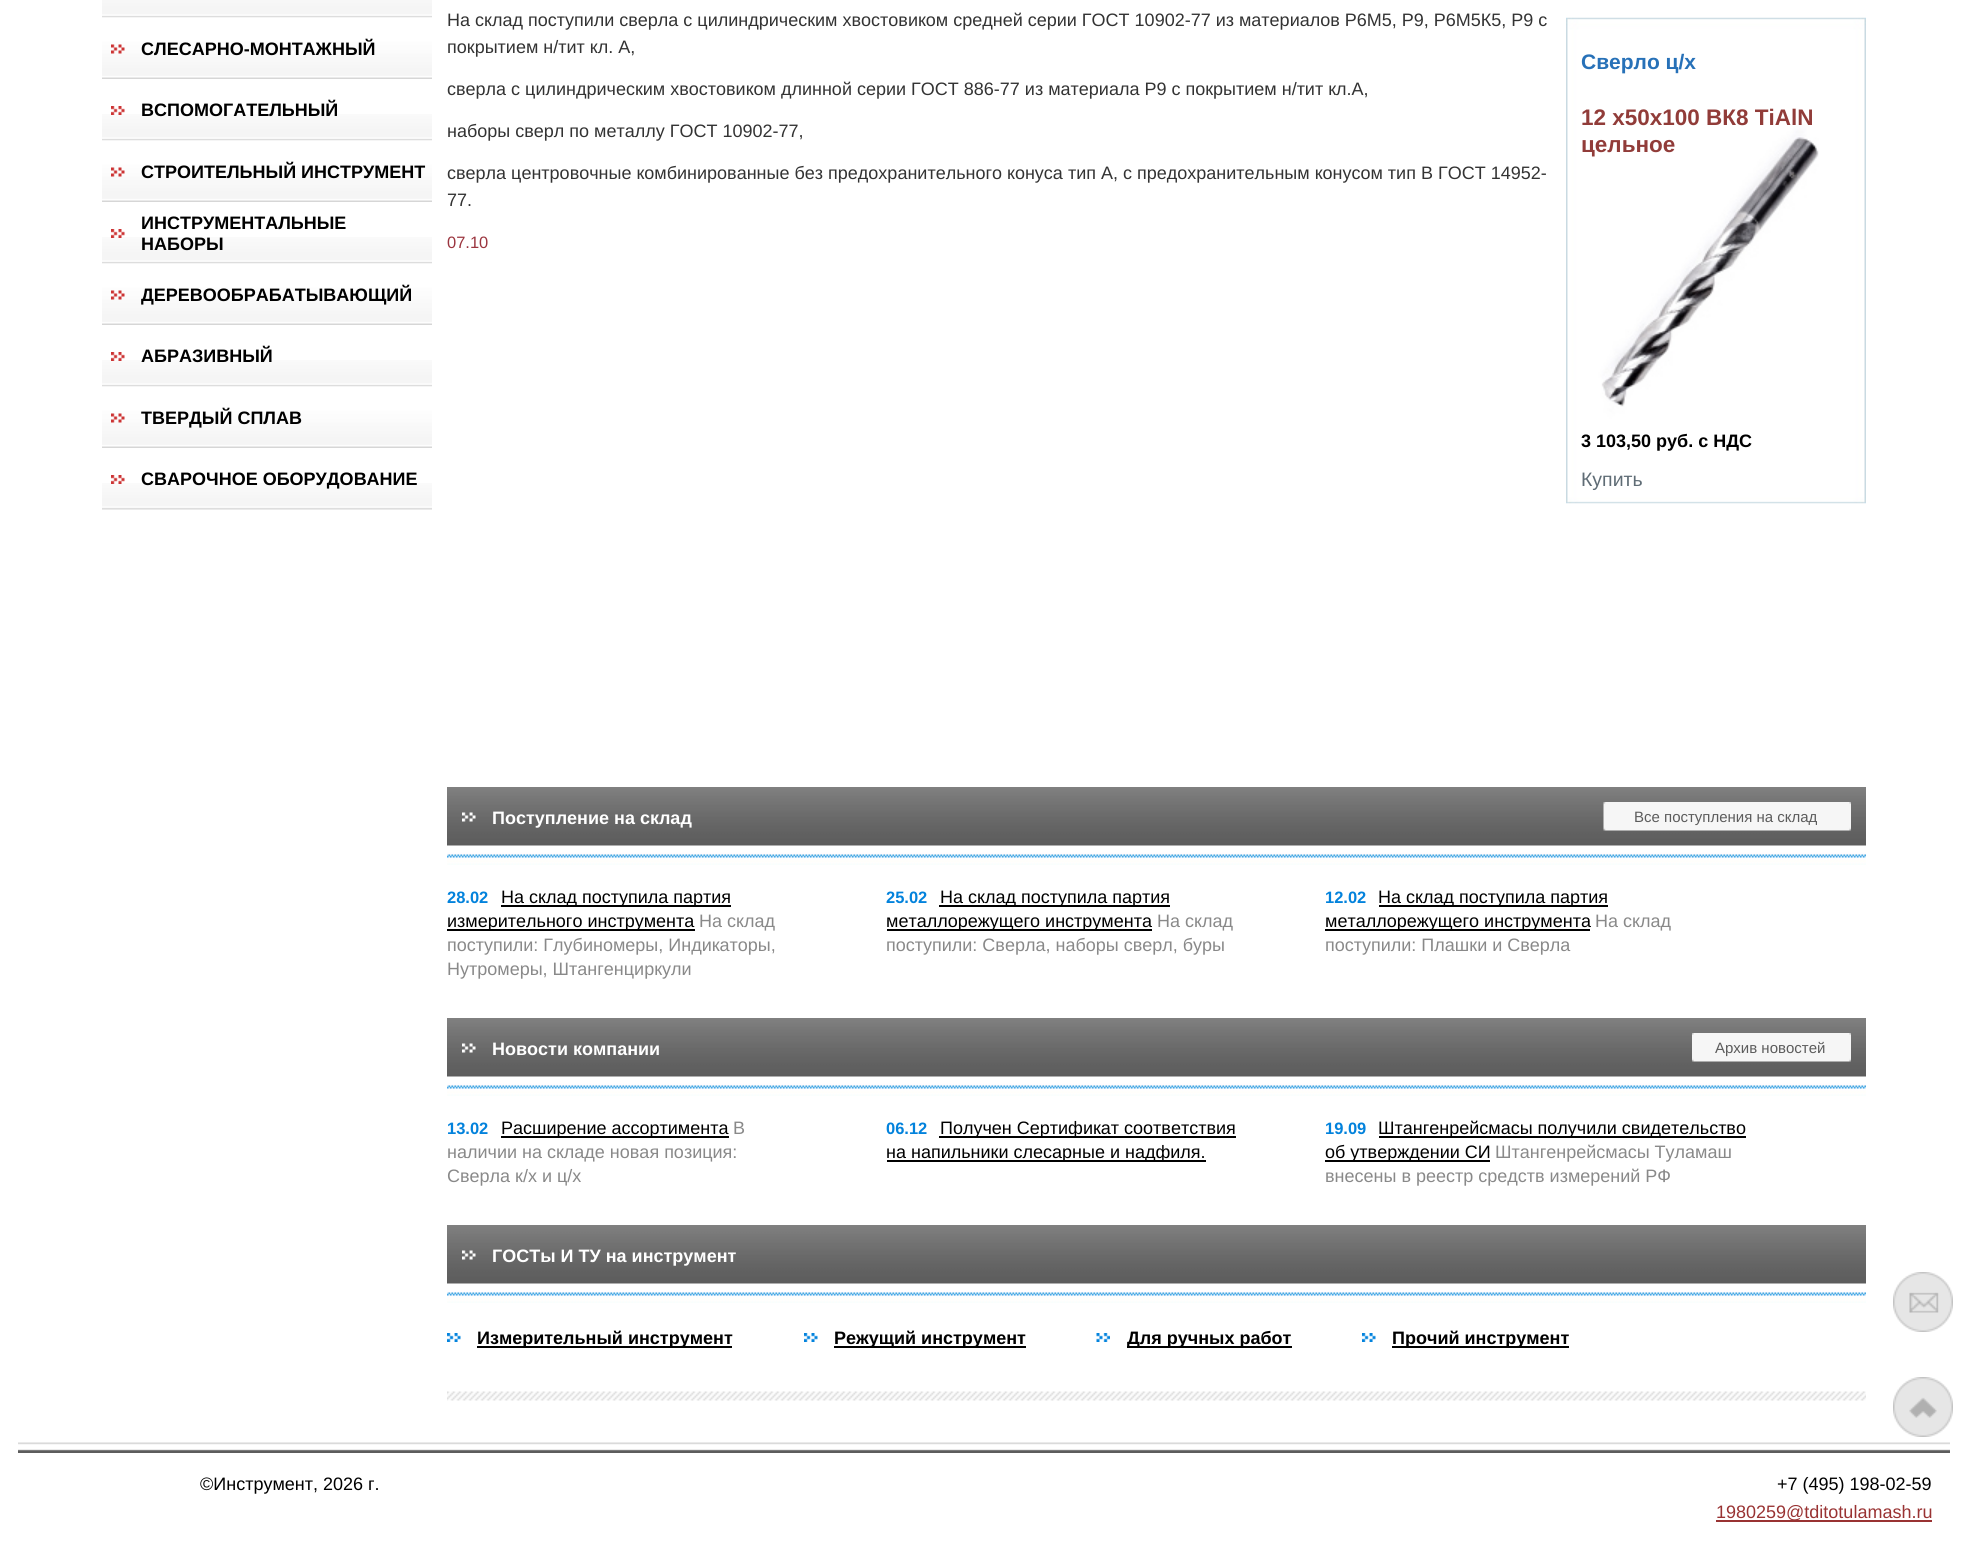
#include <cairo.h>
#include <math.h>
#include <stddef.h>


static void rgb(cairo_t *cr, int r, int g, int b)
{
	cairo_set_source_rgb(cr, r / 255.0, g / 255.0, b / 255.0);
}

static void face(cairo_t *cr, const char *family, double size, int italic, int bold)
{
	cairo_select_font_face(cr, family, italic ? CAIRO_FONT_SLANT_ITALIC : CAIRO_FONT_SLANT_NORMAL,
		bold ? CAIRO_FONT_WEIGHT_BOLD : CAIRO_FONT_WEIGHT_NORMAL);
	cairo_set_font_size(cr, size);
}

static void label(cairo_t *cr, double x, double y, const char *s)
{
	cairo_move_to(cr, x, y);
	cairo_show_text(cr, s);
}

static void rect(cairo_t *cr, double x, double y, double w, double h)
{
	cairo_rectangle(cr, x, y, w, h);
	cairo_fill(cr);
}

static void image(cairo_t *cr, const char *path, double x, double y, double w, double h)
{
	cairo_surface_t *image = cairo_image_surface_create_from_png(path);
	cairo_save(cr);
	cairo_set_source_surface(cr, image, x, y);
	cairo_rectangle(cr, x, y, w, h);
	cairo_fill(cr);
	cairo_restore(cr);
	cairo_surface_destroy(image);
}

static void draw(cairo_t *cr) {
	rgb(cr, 255, 255, 255);
	cairo_paint(cr);
	image(cr, "image0.png", 102, 0, 330, 18);
	image(cr, "image1.png", 102, 17, 330, 62);
	image(cr, "image2.png", 111, 44, 14, 10);
	face(cr, "Liberation Sans", 18, 0, 1);
	rgb(cr, 0, 0, 0);
	label(cr, 141, 55, "СЛЕСАРНО-МОНТАЖНЫЙ");
	image(cr, "image3.png", 102, 114, 330, 27);
	image(cr, "image4.png", 111, 106, 14, 9);
	label(cr, 141, 116, "ВСПОМОГАТЕЛЬНЫЙ");
	image(cr, "image1.png", 102, 140, 330, 62);
	image(cr, "image2.png", 111, 167, 14, 10);
	label(cr, 141, 178, "СТРОИТЕЛЬНЫЙ ИНСТРУМЕНТ");
	image(cr, "image3.png", 102, 237, 330, 27);
	image(cr, "image4.png", 111, 229, 14, 9);
	label(cr, 141, 229, "ИНСТРУМЕНТАЛЬНЫЕ");
	label(cr, 141, 250, "НАБОРЫ");
	image(cr, "image1.png", 102, 263, 330, 62);
	image(cr, "image2.png", 111, 290, 14, 10);
	label(cr, 141, 301, "ДЕРЕВООБРАБАТЫВАЮЩИЙ");
	image(cr, "image3.png", 102, 360, 330, 27);
	image(cr, "image4.png", 111, 352, 14, 9);
	label(cr, 141, 362, "АБРАЗИВНЫЙ");
	image(cr, "image1.png", 102, 386, 330, 62);
	image(cr, "image2.png", 111, 413, 14, 10);
	label(cr, 141, 424, "ТВЕРДЫЙ СПЛАВ");
	image(cr, "image3.png", 102, 483, 330, 27);
	image(cr, "image4.png", 111, 475, 14, 9);
	label(cr, 141, 485, "СВАРОЧНОЕ ОБОРУДОВАНИЕ");
	face(cr, "Liberation Sans", 18, 0, 0);
	rgb(cr, 51, 51, 51);
	label(cr, 447, 26, "На склад поступили сверла с цилиндрическим хвостовиком средней серии ГОСТ 10902-77 из материалов Р6М5, Р9, Р6М5К5, Р9 с");
	label(cr, 447, 53, "покрытием н/тит кл. А,");
	label(cr, 447, 95, "сверла с цилиндрическим хвостовиком длинной серии ГОСТ 886-77 из материала Р9 с покрытием н/тит кл.А,");
	label(cr, 447, 137, "наборы сверл по металлу ГОСТ 10902-77,");
	label(cr, 447, 179, "сверла центровочные комбинированные без предохранительного конуса тип А, с предохранительным конусом тип В ГОСТ 14952-");
	label(cr, 447, 206, "77.");
	face(cr, "Liberation Sans", 16.5, 0, 0);
	rgb(cr, 155, 53, 63);
	label(cr, 447, 248, "07.10");
	image(cr, "image5.png", 1566, 17, 300, 487);
	face(cr, "Liberation Sans", 21, 0, 1);
	rgb(cr, 39, 113, 184);
	label(cr, 1581, 69, "Сверло ц/х");
	face(cr, "Liberation Sans", 22.5, 0, 1);
	rgb(cr, 145, 60, 57);
	label(cr, 1581, 125, "12 х50х100 ВК8 TiAlN");
	label(cr, 1581, 152, "цельное");
	face(cr, "Liberation Sans", 18, 0, 1);
	rgb(cr, 0, 0, 0);
	label(cr, 1581, 447, "3 103,50 руб. с НДС");
	face(cr, "Liberation Sans", 19.5, 0, 0);
	rgb(cr, 95, 108, 117);
	label(cr, 1581, 486, "Купить");
	image(cr, "image6.png", 447, 787, 1419, 78);
	image(cr, "image7.png", 462, 812, 14, 10);
	face(cr, "Liberation Sans", 18, 0, 1);
	rgb(cr, 255, 255, 255);
	label(cr, 492, 824, "Поступление на склад");
	image(cr, "image8.png", 1603, 802, 248, 29);
	face(cr, "Liberation Sans", 15, 0, 0);
	rgb(cr, 92, 92, 92);
	label(cr, 1634, 822, "Все поступления на склад");
	face(cr, "Liberation Sans", 16.5, 0, 1);
	rgb(cr, 2, 130, 220);
	label(cr, 447, 903, "28.02");
	rgb(cr, 0, 0, 0);
	rect(cr, 501, 905, 230, 2);
	face(cr, "Liberation Sans", 18, 0, 0);
	label(cr, 501, 903, "На склад поступила партия");
	rect(cr, 447, 929, 248, 2);
	label(cr, 447, 927, "измерительного инструмента");
	rgb(cr, 137, 137, 137);
	label(cr, 699, 927, "На склад");
	label(cr, 447, 951, "поступили: Глубиномеры, Индикаторы,");
	label(cr, 447, 975, "Нутромеры, Штангенциркули");
	face(cr, "Liberation Sans", 16.5, 0, 1);
	rgb(cr, 2, 130, 220);
	label(cr, 886, 903, "25.02");
	rgb(cr, 0, 0, 0);
	rect(cr, 939, 905, 231, 2);
	face(cr, "Liberation Sans", 18, 0, 0);
	label(cr, 940, 903, "На склад поступила партия");
	rect(cr, 887, 929, 265, 2);
	label(cr, 886, 927, "металлорежущего инструмента");
	rgb(cr, 137, 137, 137);
	label(cr, 1157, 927, "На склад");
	label(cr, 886, 951, "поступили: Сверла, наборы сверл, буры");
	face(cr, "Liberation Sans", 16.5, 0, 1);
	rgb(cr, 2, 130, 220);
	label(cr, 1325, 903, "12.02");
	rgb(cr, 0, 0, 0);
	rect(cr, 1379, 905, 229, 2);
	face(cr, "Liberation Sans", 18, 0, 0);
	label(cr, 1378, 903, "На склад поступила партия");
	rect(cr, 1325, 929, 265, 2);
	label(cr, 1325, 927, "металлорежущего инструмента");
	rgb(cr, 137, 137, 137);
	label(cr, 1595, 927, "На склад");
	label(cr, 1325, 951, "поступили: Плашки и Сверла");
	image(cr, "image6.png", 447, 1018, 1419, 78);
	image(cr, "image7.png", 462, 1043, 14, 10);
	face(cr, "Liberation Sans", 18, 0, 1);
	rgb(cr, 255, 255, 255);
	label(cr, 492, 1055, "Новости компании");
	image(cr, "image9.png", 1692, 1033, 159, 29);
	face(cr, "Liberation Sans", 15, 0, 0);
	rgb(cr, 92, 92, 92);
	label(cr, 1715, 1053, "Архив новостей");
	face(cr, "Liberation Sans", 16.5, 0, 1);
	rgb(cr, 2, 130, 220);
	label(cr, 447, 1134, "13.02");
	rgb(cr, 0, 0, 0);
	rect(cr, 501, 1136, 228, 2);
	face(cr, "Liberation Sans", 18, 0, 0);
	label(cr, 501, 1134, "Расширение ассортимента");
	rgb(cr, 137, 137, 137);
	label(cr, 733, 1134, "В");
	label(cr, 447, 1158, "наличии на складе новая позиция:");
	label(cr, 447, 1182, "Сверла к/х и ц/х");
	face(cr, "Liberation Sans", 16.5, 0, 1);
	rgb(cr, 2, 130, 220);
	label(cr, 886, 1134, "06.12");
	rgb(cr, 0, 0, 0);
	rect(cr, 939, 1136, 297, 2);
	face(cr, "Liberation Sans", 18, 0, 0);
	label(cr, 940, 1134, "Получен Сертификат соответствия");
	rect(cr, 887, 1160, 319, 2);
	label(cr, 886, 1158, "на напильники слесарные и надфиля.");
	face(cr, "Liberation Sans", 16.5, 0, 1);
	rgb(cr, 2, 130, 220);
	label(cr, 1325, 1134, "19.09");
	rgb(cr, 0, 0, 0);
	rect(cr, 1379, 1136, 367, 2);
	face(cr, "Liberation Sans", 18, 0, 0);
	label(cr, 1378, 1134, "Штангенрейсмасы получили свидетельство");
	rect(cr, 1325, 1160, 165, 2);
	label(cr, 1325, 1158, "об утверждении СИ");
	rgb(cr, 137, 137, 137);
	label(cr, 1495, 1158, "Штангенрейсмасы Туламаш");
	label(cr, 1325, 1182, "внесены в реестр средств измерений РФ");
	image(cr, "image10.png", 447, 1225, 1419, 78);
	image(cr, "image7.png", 462, 1250, 14, 10);
	face(cr, "Liberation Sans", 18, 0, 1);
	rgb(cr, 255, 255, 255);
	label(cr, 492, 1262, "ГОСТы И ТУ на инструмент");
	image(cr, "image11.png", 447, 1333, 14, 9);
	rgb(cr, 0, 0, 0);
	rect(cr, 477, 1346, 255, 2);
	label(cr, 477, 1344, "Измерительный инструмент");
	image(cr, "image12.png", 804, 1333, 14, 9);
	rect(cr, 834, 1346, 192, 2);
	label(cr, 834, 1344, "Режущий инструмент");
	image(cr, "image13.png", 1096, 1333, 14, 9);
	rect(cr, 1127, 1346, 165, 2);
	label(cr, 1127, 1344, "Для ручных работ");
	image(cr, "image11.png", 1362, 1333, 14, 9);
	rect(cr, 1392, 1346, 177, 2);
	label(cr, 1392, 1344, "Прочий инструмент");
	image(cr, "image14.png", 447, 1391, 1419, 10);
	image(cr, "image15.png", 1893, 1272, 60, 60);
	image(cr, "image16.png", 1893, 1377, 60, 60);
	image(cr, "image17.png", 18, 1442, 1932, 11);
	face(cr, "Liberation Sans", 18, 0, 0);
	label(cr, 200, 1490, "©Инструмент, 2026 г.");
	label(cr, 1777, 1490, "+7 (495) 198-02-59");
	rgb(cr, 153, 51, 51);
	rect(cr, 1716, 1520, 216, 2);
	label(cr, 1716, 1518, "1980259@tditotulamash.ru");
}

int main(void) {
	cairo_surface_t *surface = cairo_image_surface_create(CAIRO_FORMAT_RGB24, 1967, 1542);
	cairo_t *cr = cairo_create(surface);
	cairo_font_options_t *options = cairo_font_options_create();
	cairo_font_options_set_hint_metrics(options, CAIRO_HINT_METRICS_OFF);
	cairo_font_options_set_hint_style(options, CAIRO_HINT_STYLE_NONE);
	cairo_set_font_options(cr, options);
	cairo_set_miter_limit(cr, 4);
	draw(cr);
	cairo_surface_write_to_png(surface, "render.png");
	cairo_font_options_destroy(options);
	cairo_destroy(cr);
	cairo_surface_destroy(surface);
	return 0;
}
